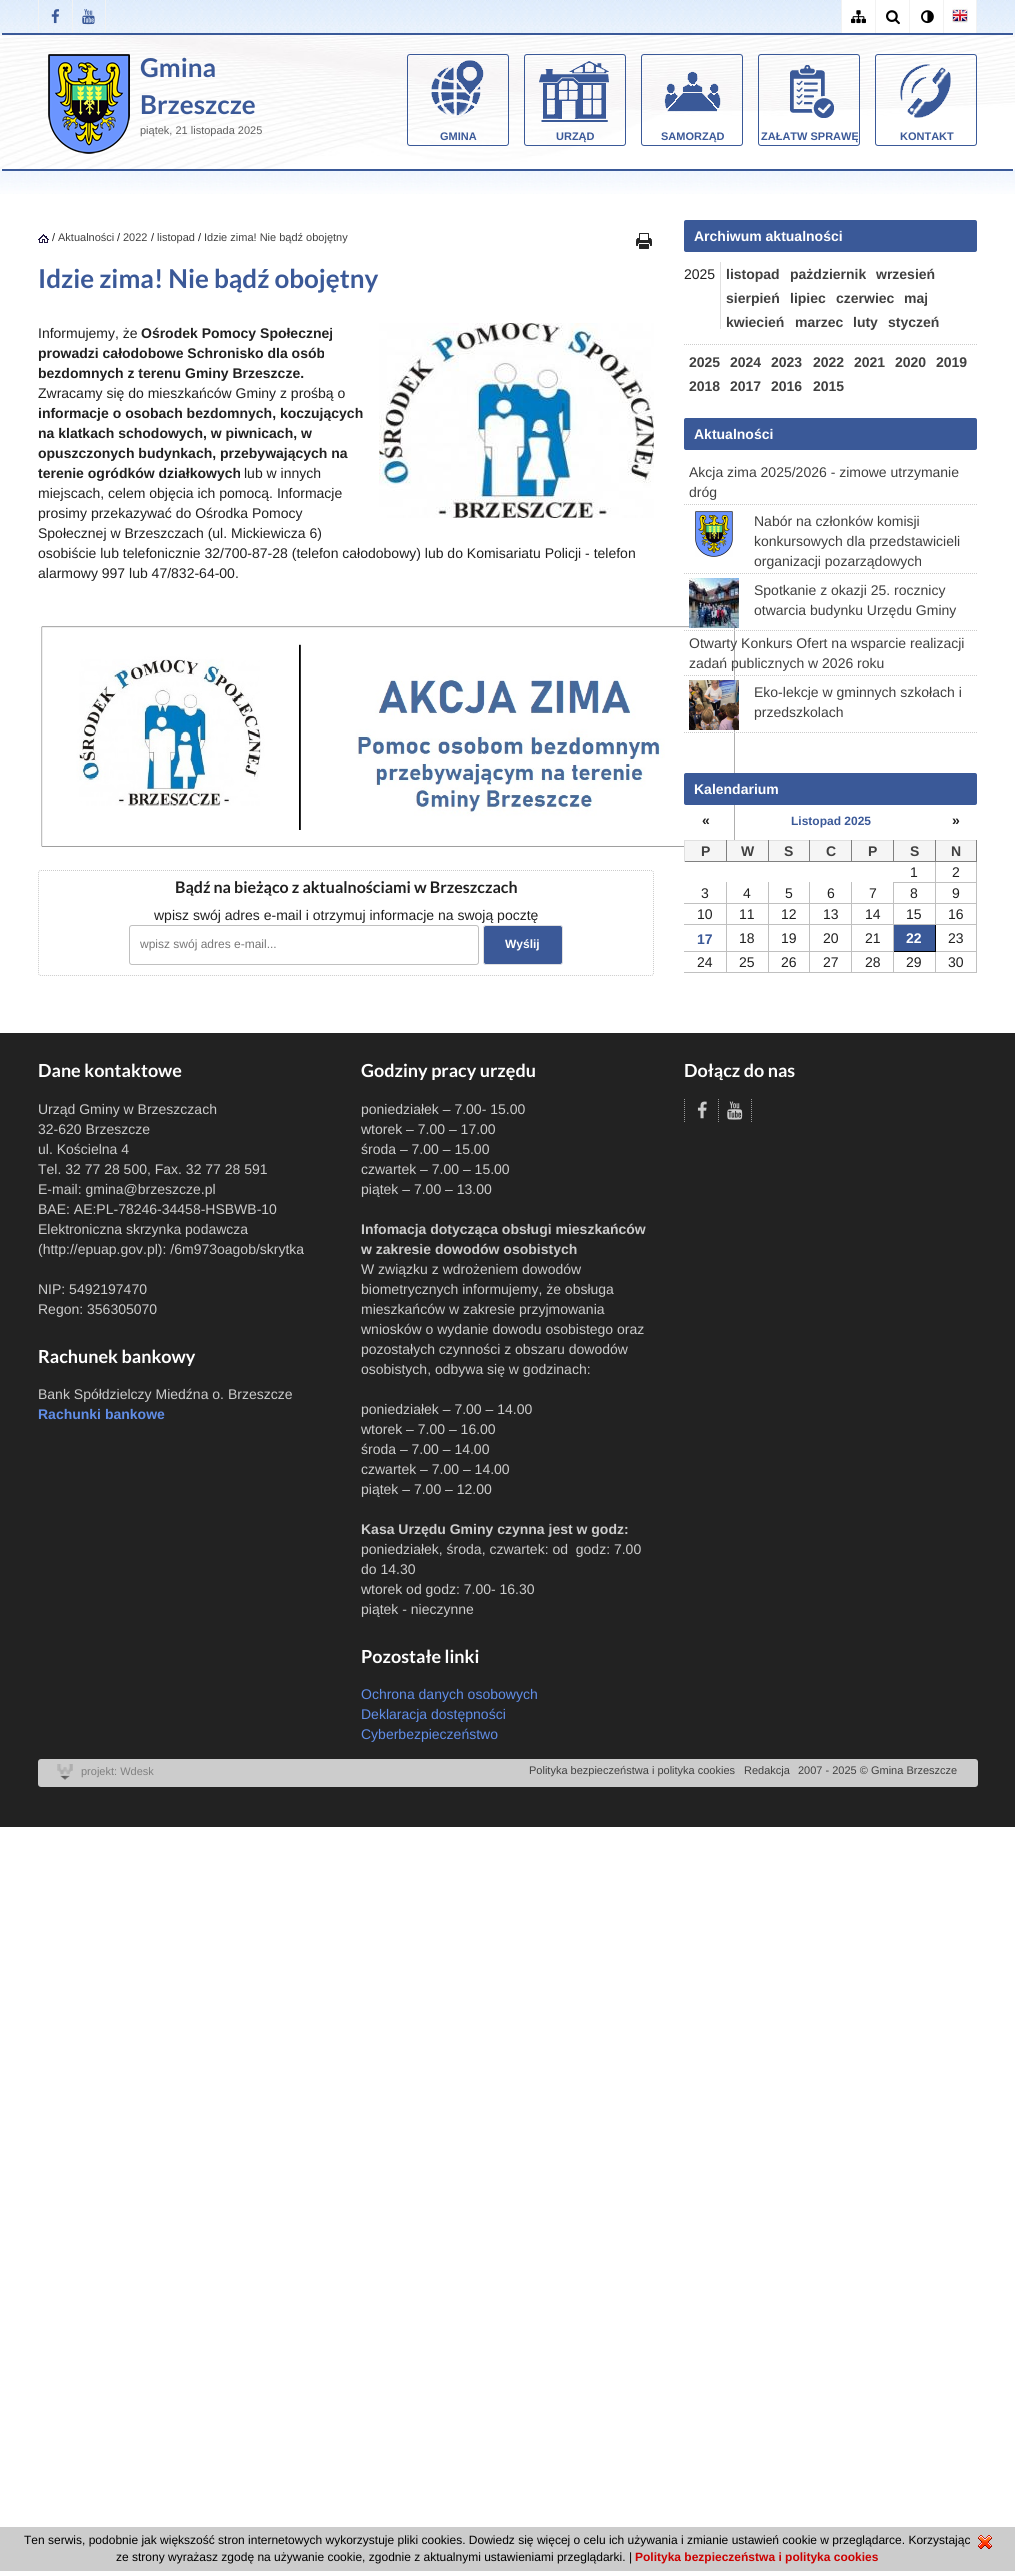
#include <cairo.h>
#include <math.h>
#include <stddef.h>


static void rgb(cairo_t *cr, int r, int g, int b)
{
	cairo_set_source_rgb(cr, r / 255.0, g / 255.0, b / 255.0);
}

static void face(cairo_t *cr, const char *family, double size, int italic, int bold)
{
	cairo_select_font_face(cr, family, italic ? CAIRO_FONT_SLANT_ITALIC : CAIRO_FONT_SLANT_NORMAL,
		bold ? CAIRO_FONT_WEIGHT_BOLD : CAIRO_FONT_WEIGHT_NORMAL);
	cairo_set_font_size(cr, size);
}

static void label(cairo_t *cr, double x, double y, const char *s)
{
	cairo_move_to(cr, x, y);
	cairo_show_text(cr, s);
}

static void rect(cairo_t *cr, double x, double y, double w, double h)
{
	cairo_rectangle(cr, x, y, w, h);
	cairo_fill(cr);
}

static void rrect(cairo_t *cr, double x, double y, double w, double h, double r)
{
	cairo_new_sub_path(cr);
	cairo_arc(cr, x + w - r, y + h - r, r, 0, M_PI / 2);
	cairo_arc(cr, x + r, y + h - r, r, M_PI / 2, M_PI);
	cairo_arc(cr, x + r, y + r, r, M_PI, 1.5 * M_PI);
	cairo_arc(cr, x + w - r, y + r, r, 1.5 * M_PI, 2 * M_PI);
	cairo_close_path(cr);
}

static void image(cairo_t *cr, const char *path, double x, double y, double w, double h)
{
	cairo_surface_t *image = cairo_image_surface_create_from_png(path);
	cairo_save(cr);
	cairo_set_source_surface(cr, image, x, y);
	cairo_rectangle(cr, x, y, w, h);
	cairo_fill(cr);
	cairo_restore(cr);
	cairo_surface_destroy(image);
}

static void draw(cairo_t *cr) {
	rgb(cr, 255, 255, 255);
	cairo_paint(cr);
	image(cr, "image0.png", 0, 0, 1015, 194);
	rgb(cr, 242, 242, 242);
	rect(cr, 38, 0, 1, 33);
	image(cr, "image1.png", 51, 9, 9, 15);
	rect(cr, 105, 0, 1, 33);
	rect(cr, 72, 0, 1, 33);
	image(cr, "image2.png", 82, 9, 13, 16);
	rgb(cr, 255, 255, 255);
	rect(cr, 842, 0, 33, 33);
	rgb(cr, 242, 242, 242);
	rect(cr, 841, 0, 1, 33);
	image(cr, "image3.png", 851, 10, 15, 14);
	rgb(cr, 255, 255, 255);
	rect(cr, 876, 0, 33, 33);
	rgb(cr, 242, 242, 242);
	rect(cr, 875, 0, 1, 33);
	image(cr, "image4.png", 886, 10, 14, 15);
	rgb(cr, 255, 255, 255);
	rect(cr, 910, 0, 33, 33);
	rgb(cr, 242, 242, 242);
	rect(cr, 909, 0, 1, 33);
	image(cr, "image5.png", 921, 10, 13, 14);
	rgb(cr, 255, 255, 255);
	rect(cr, 944, 0, 32, 33);
	image(cr, "image6.png", 952, 7, 16, 16);
	rgb(cr, 242, 242, 242);
	rect(cr, 976, 0, 1, 33);
	rect(cr, 943, 0, 1, 33);
	image(cr, "image7.png", 0, 33, 1015, 138);
	rgb(cr, 58, 89, 152);
	rect(cr, 2, 33, 1011, 2);
	rect(cr, 2, 169, 1011, 2);
	image(cr, "image8.png", 48, 54, 82, 100);
	face(cr, "Lato", 26, 0, 1);
	rgb(cr, 59, 89, 152);
	label(cr, 140, 77, "Gmina");
	label(cr, 140, 114, "Brzeszcze");
	face(cr, "Liberation Sans", 11, 0, 0);
	rgb(cr, 96, 96, 96);
	label(cr, 140, 134, "piątek, 21 listopada 2025");
	rrect(cr, 407.5, 54.5, 101, 91, 2.5);
	rgb(cr, 58, 89, 152);
	cairo_set_line_width(cr, 1);
	cairo_stroke(cr);
	image(cr, "image9.png", 431, 60, 53, 57);
	face(cr, "Liberation Sans", 11, 0, 1);
	rgb(cr, 59, 89, 152);
	label(cr, 440, 140, "GMINA");
	rrect(cr, 524.5, 54.5, 101, 91, 2.5);
	rgb(cr, 58, 89, 152);
	cairo_stroke(cr);
	image(cr, "image10.png", 539, 61, 70, 61);
	rgb(cr, 59, 89, 152);
	label(cr, 556, 140, "URZĄD");
	rrect(cr, 641.5, 54.5, 101, 91, 2.5);
	rgb(cr, 58, 89, 152);
	cairo_stroke(cr);
	image(cr, "image11.png", 664, 71, 57, 41);
	rgb(cr, 59, 89, 152);
	label(cr, 661, 140, "SAMORZĄD");
	rrect(cr, 758.5, 54.5, 101, 91, 2.5);
	rgb(cr, 58, 89, 152);
	cairo_stroke(cr);
	image(cr, "image12.png", 790, 65, 44, 53);
	rgb(cr, 59, 89, 152);
	label(cr, 761, 140, "ZAŁATW SPRAWĘ");
	rrect(cr, 875.5, 54.5, 101, 91, 2.5);
	rgb(cr, 58, 89, 152);
	cairo_stroke(cr);
	image(cr, "image13.png", 900, 64, 51, 54);
	rgb(cr, 59, 89, 152);
	label(cr, 900, 140, "KONTAKT");
	image(cr, "image14.png", 38, 234, 11, 9);
	face(cr, "Liberation Sans", 11, 0, 0);
	rgb(cr, 32, 32, 32);
	label(cr, 52, 241, "/");
	rgb(cr, 64, 64, 64);
	label(cr, 58, 241, "Aktualności");
	rgb(cr, 32, 32, 32);
	label(cr, 117, 241, "/");
	rgb(cr, 64, 64, 64);
	label(cr, 123, 241, "2022");
	rgb(cr, 32, 32, 32);
	label(cr, 151, 241, "/");
	rgb(cr, 64, 64, 64);
	label(cr, 157, 241, "listopad");
	rgb(cr, 32, 32, 32);
	label(cr, 198, 241, "/");
	rgb(cr, 64, 64, 64);
	label(cr, 204, 241, "Idzie zima! Nie bądź obojętny");
	image(cr, "image15.png", 636, 233, 16, 16);
	face(cr, "Lato", 26, 0, 1);
	rgb(cr, 59, 89, 152);
	label(cr, 38, 288, "Idzie zima! Nie bądź obojętny");
	image(cr, "image16.png", 379, 323, 275, 195);
	face(cr, "Liberation Sans", 14, 0, 0);
	rgb(cr, 32, 32, 32);
	label(cr, 38, 338, "Informujemy, że");
	face(cr, "Liberation Sans", 14, 0, 1);
	label(cr, 141, 338, "Ośrodek Pomocy Społecznej");
	label(cr, 38, 358, "prowadzi całodobowe Schronisko dla osób");
	label(cr, 38, 378, "bezdomnych z terenu Gminy Brzeszcze.");
	face(cr, "Liberation Sans", 14, 0, 0);
	label(cr, 38, 398, "Zwracamy się do mieszkańców Gminy z prośbą o");
	face(cr, "Liberation Sans", 14, 0, 1);
	label(cr, 38, 418, "informacje o osobach bezdomnych, koczujących");
	label(cr, 38, 438, "na klatkach schodowych, w piwnicach, w");
	label(cr, 38, 458, "opuszczonych budynkach, przebywających na");
	label(cr, 38, 478, "terenie ogródków działkowych");
	face(cr, "Liberation Sans", 14, 0, 0);
	label(cr, 244, 478, "lub w innych");
	label(cr, 38, 498, "miejscach, celem objęcia ich pomocą. Informacje");
	label(cr, 38, 518, "prosimy przekazywać do Ośrodka Pomocy");
	label(cr, 38, 538, "Społecznej w Brzeszczach (ul. Mickiewicza 6)");
	label(cr, 38, 558, "osobiście lub telefonicznie 32/700-87-28 (telefon całodobowy) lub do Komisariatu Policji - telefon");
	label(cr, 38, 578, "alarmowy 997 lub 47/832-64-00.");
	image(cr, "image17.png", 39, 626, 696, 221);
	cairo_new_path(cr);
	cairo_move_to(cr, 41, 870.5);
	cairo_line_to(cr, 651, 870.5);
	cairo_curve_to(cr, 652.5, 870.5, 653.5, 871.5, 653.5, 873);
	cairo_line_to(cr, 653.5, 973);
	cairo_curve_to(cr, 653.5, 974.5, 652.5, 975.5, 651, 975.5);
	cairo_line_to(cr, 41, 975.5);
	cairo_curve_to(cr, 39.5, 975.5, 38.5, 974.5, 38.5, 973);
	cairo_line_to(cr, 38.5, 873);
	cairo_curve_to(cr, 38.5, 871.5, 39.5, 870.5, 41, 870.5);
	cairo_close_path(cr);
	rgb(cr, 204, 204, 204);
	cairo_set_dash(cr, (double[]){1, 1}, 2, 0);
	cairo_stroke(cr);
	face(cr, "Lato", 16, 0, 1);
	rgb(cr, 32, 32, 32);
	label(cr, 175, 893, "Bądź na bieżąco z aktualnościami w Brzeszczach");
	face(cr, "Liberation Sans", 14, 0, 0);
	label(cr, 154, 920, "wpisz swój adres e-mail i otrzymuj informacje na swoją pocztę");
	rrect(cr, 129.5, 925.5, 349, 39, 2.5);
	rgb(cr, 192, 192, 192);
	cairo_set_dash(cr, NULL, 0, 0);
	cairo_stroke(cr);
	face(cr, "Liberation Sans", 12, 0, 0);
	rgb(cr, 119, 119, 119);
	label(cr, 140, 948, "wpisz swój adres e-mail...");
	rgb(cr, 59, 89, 152);
	rrect(cr, 483.5, 925.5, 79, 39, 2.5);
	cairo_fill_preserve(cr);
	rgb(cr, 224, 224, 224);
	cairo_stroke(cr);
	face(cr, "Liberation Sans", 12, 0, 1);
	rgb(cr, 255, 255, 255);
	label(cr, 505, 948, "Wyślij");
	rgb(cr, 58, 89, 152);
	rrect(cr, 684, 220, 293, 32, 2);
	cairo_fill(cr);
	face(cr, "Liberation Sans", 14, 0, 1);
	rgb(cr, 255, 255, 255);
	label(cr, 694, 241, "Archiwum aktualności");
	rgb(cr, 224, 224, 224);
	rect(cr, 720, 262, 1, 67);
	face(cr, "Liberation Sans", 14, 0, 0);
	rgb(cr, 32, 32, 32);
	label(cr, 684, 279, "2025");
	face(cr, "Liberation Sans", 14, 0, 1);
	rgb(cr, 64, 64, 64);
	label(cr, 726, 279, "listopad");
	label(cr, 790, 279, "pażdziernik");
	label(cr, 876, 279, "wrzesień");
	label(cr, 726, 303, "sierpień");
	label(cr, 790, 303, "lipiec");
	label(cr, 836, 303, "czerwiec");
	label(cr, 904, 303, "maj");
	label(cr, 726, 327, "kwiecień");
	label(cr, 795, 327, "marzec");
	label(cr, 853, 327, "luty");
	label(cr, 888, 327, "styczeń");
	cairo_new_path(cr);
	cairo_move_to(cr, 684, 344.5);
	cairo_line_to(cr, 977, 344.5);
	rgb(cr, 204, 204, 204);
	cairo_set_dash(cr, (double[]){1, 1}, 2, 0);
	cairo_stroke(cr);
	rgb(cr, 64, 64, 64);
	label(cr, 689, 367, "2025");
	label(cr, 730, 367, "2024");
	label(cr, 771, 367, "2023");
	label(cr, 813, 367, "2022");
	label(cr, 854, 367, "2021");
	label(cr, 895, 367, "2020");
	label(cr, 936, 367, "2019");
	label(cr, 689, 391, "2018");
	label(cr, 730, 391, "2017");
	label(cr, 771, 391, "2016");
	label(cr, 813, 391, "2015");
	rgb(cr, 58, 89, 152);
	rrect(cr, 684, 418, 293, 32, 2);
	cairo_fill(cr);
	rgb(cr, 255, 255, 255);
	label(cr, 694, 439, "Aktualności");
	cairo_new_path(cr);
	cairo_move_to(cr, 684, 504.5);
	cairo_line_to(cr, 977, 504.5);
	rgb(cr, 204, 204, 204);
	cairo_stroke(cr);
	face(cr, "Liberation Sans", 14, 0, 0);
	rgb(cr, 64, 64, 64);
	label(cr, 689, 477, "Akcja zima 2025/2026 - zimowe utrzymanie");
	label(cr, 689, 497, "dróg");
	cairo_new_path(cr);
	cairo_move_to(cr, 684, 573.5);
	cairo_line_to(cr, 977, 573.5);
	rgb(cr, 204, 204, 204);
	cairo_stroke(cr);
	image(cr, "image18.png", 695, 511, 38, 46);
	rgb(cr, 64, 64, 64);
	label(cr, 754, 526, "Nabór na członków komisji");
	label(cr, 754, 546, "konkursowych dla przedstawicieli");
	label(cr, 754, 566, "organizacji pozarządowych");
	cairo_new_path(cr);
	cairo_move_to(cr, 684, 630.5);
	cairo_line_to(cr, 977, 630.5);
	rgb(cr, 204, 204, 204);
	cairo_stroke(cr);
	image(cr, "image19.png", 689, 578, 50, 50);
	rgb(cr, 64, 64, 64);
	label(cr, 754, 595, "Spotkanie z okazji 25. rocznicy");
	label(cr, 754, 615, "otwarcia budynku Urzędu Gminy");
	cairo_new_path(cr);
	cairo_move_to(cr, 684, 675.5);
	cairo_line_to(cr, 977, 675.5);
	rgb(cr, 204, 204, 204);
	cairo_stroke(cr);
	rgb(cr, 64, 64, 64);
	label(cr, 689, 648, "Otwarty Konkurs Ofert na wsparcie realizacji");
	label(cr, 689, 668, "zadań publicznych w 2026 roku");
	cairo_new_path(cr);
	cairo_move_to(cr, 684, 732.5);
	cairo_line_to(cr, 977, 732.5);
	rgb(cr, 204, 204, 204);
	cairo_stroke(cr);
	image(cr, "image20.png", 689, 680, 50, 50);
	rgb(cr, 64, 64, 64);
	label(cr, 754, 697, "Eko-lekcje w gminnych szkołach i");
	label(cr, 754, 717, "przedszkolach");
	rgb(cr, 58, 89, 152);
	rrect(cr, 684, 773, 293, 32, 2);
	cairo_fill(cr);
	face(cr, "Liberation Sans", 14, 0, 1);
	rgb(cr, 255, 255, 255);
	label(cr, 694, 794, "Kalendarium");
	rgb(cr, 32, 32, 32);
	label(cr, 702, 825, "«");
	face(cr, "Liberation Sans", 12, 0, 1);
	rgb(cr, 59, 89, 152);
	label(cr, 791, 825, "Listopad 2025");
	face(cr, "Liberation Sans", 14, 0, 1);
	rgb(cr, 32, 32, 32);
	label(cr, 952, 825, "»");
	rgb(cr, 245, 245, 245);
	rect(cr, 685, 841, 41, 20);
	rgb(cr, 224, 224, 224);
	rect(cr, 684, 840, 293, 1);
	rgb(cr, 192, 192, 192);
	rect(cr, 976, 861, 1, 112);
	rgb(cr, 128, 128, 128);
	rect(cr, 976, 840, 1, 22);
	rgb(cr, 192, 192, 192);
	rect(cr, 935, 972, 42, 1);
	rect(cr, 935, 951, 1, 22);
	rect(cr, 935, 951, 42, 1);
	rgb(cr, 0, 0, 0);
	rect(cr, 935, 924, 1, 28);
	rgb(cr, 192, 192, 192);
	rect(cr, 935, 924, 42, 1);
	rect(cr, 935, 903, 1, 22);
	rect(cr, 935, 903, 42, 1);
	rect(cr, 935, 882, 1, 22);
	rect(cr, 935, 882, 42, 1);
	rect(cr, 935, 861, 1, 22);
	rgb(cr, 128, 128, 128);
	rect(cr, 935, 861, 42, 1);
	rect(cr, 935, 840, 1, 22);
	rect(cr, 893, 861, 43, 1);
	rect(cr, 893, 840, 1, 22);
	rect(cr, 851, 861, 43, 1);
	rect(cr, 851, 840, 1, 22);
	rect(cr, 809, 861, 43, 1);
	rect(cr, 809, 840, 1, 22);
	rect(cr, 768, 861, 42, 1);
	rect(cr, 768, 840, 1, 22);
	rect(cr, 726, 861, 43, 1);
	rect(cr, 726, 840, 1, 22);
	rect(cr, 684, 861, 43, 1);
	rgb(cr, 224, 224, 224);
	rect(cr, 684, 840, 1, 22);
	rgb(cr, 64, 64, 64);
	label(cr, 701, 856, "P");
	rgb(cr, 245, 245, 245);
	rect(cr, 727, 841, 41, 20);
	rgb(cr, 64, 64, 64);
	label(cr, 741, 856, "W");
	rgb(cr, 245, 245, 245);
	rect(cr, 769, 841, 40, 20);
	rgb(cr, 64, 64, 64);
	label(cr, 784, 856, "S");
	rgb(cr, 245, 245, 245);
	rect(cr, 810, 841, 41, 20);
	rgb(cr, 64, 64, 64);
	label(cr, 826, 856, "C");
	rgb(cr, 245, 245, 245);
	rect(cr, 852, 841, 41, 20);
	rgb(cr, 64, 64, 64);
	label(cr, 868, 856, "P");
	rgb(cr, 245, 245, 245);
	rect(cr, 894, 841, 41, 20);
	rgb(cr, 64, 64, 64);
	label(cr, 910, 856, "S");
	rgb(cr, 245, 245, 245);
	rect(cr, 936, 841, 40, 20);
	rgb(cr, 64, 64, 64);
	label(cr, 951, 856, "N");
	rgb(cr, 192, 192, 192);
	rect(cr, 893, 972, 43, 1);
	rect(cr, 893, 951, 1, 22);
	rgb(cr, 0, 0, 0);
	rect(cr, 893, 951, 43, 1);
	rgb(cr, 192, 192, 192);
	rect(cr, 893, 924, 1, 28);
	rect(cr, 893, 924, 43, 1);
	rect(cr, 893, 903, 1, 22);
	rect(cr, 893, 903, 43, 1);
	rect(cr, 893, 882, 1, 22);
	rect(cr, 893, 882, 43, 1);
	face(cr, "Liberation Sans", 14, 0, 0);
	rgb(cr, 32, 32, 32);
	label(cr, 910, 877, "1");
	label(cr, 952, 877, "2");
	rgb(cr, 192, 192, 192);
	rect(cr, 851, 972, 43, 1);
	rect(cr, 851, 951, 1, 22);
	rect(cr, 851, 951, 43, 1);
	rect(cr, 851, 924, 1, 28);
	rect(cr, 851, 924, 43, 1);
	rect(cr, 851, 903, 1, 22);
	rect(cr, 851, 903, 43, 1);
	rect(cr, 851, 882, 1, 22);
	rect(cr, 809, 972, 43, 1);
	rect(cr, 809, 951, 1, 22);
	rect(cr, 809, 951, 43, 1);
	rect(cr, 809, 924, 1, 28);
	rect(cr, 809, 924, 43, 1);
	rect(cr, 809, 903, 1, 22);
	rect(cr, 809, 903, 43, 1);
	rect(cr, 809, 882, 1, 22);
	rect(cr, 768, 972, 42, 1);
	rect(cr, 768, 951, 1, 22);
	rect(cr, 768, 951, 42, 1);
	rect(cr, 768, 924, 1, 28);
	rect(cr, 768, 924, 42, 1);
	rect(cr, 768, 903, 1, 22);
	rect(cr, 768, 903, 42, 1);
	rect(cr, 768, 882, 1, 22);
	rect(cr, 726, 972, 43, 1);
	rect(cr, 726, 951, 1, 22);
	rect(cr, 726, 951, 43, 1);
	rect(cr, 726, 924, 1, 28);
	rect(cr, 726, 924, 43, 1);
	rect(cr, 726, 903, 1, 22);
	rect(cr, 726, 903, 43, 1);
	rect(cr, 726, 882, 1, 22);
	rect(cr, 684, 903, 43, 1);
	rgb(cr, 32, 32, 32);
	label(cr, 701, 898, "3");
	label(cr, 743, 898, "4");
	label(cr, 785, 898, "5");
	label(cr, 827, 898, "6");
	label(cr, 869, 898, "7");
	label(cr, 910, 898, "8");
	label(cr, 952, 898, "9");
	rgb(cr, 192, 192, 192);
	rect(cr, 684, 924, 43, 1);
	rgb(cr, 32, 32, 32);
	label(cr, 697, 919, "10");
	label(cr, 739, 919, "11");
	label(cr, 781, 919, "12");
	label(cr, 823, 919, "13");
	label(cr, 865, 919, "14");
	label(cr, 906, 919, "15");
	label(cr, 948, 919, "16");
	rgb(cr, 192, 192, 192);
	rect(cr, 684, 951, 43, 1);
	face(cr, "Liberation Sans", 14, 0, 1);
	rgb(cr, 59, 89, 152);
	label(cr, 697, 944, "17");
	face(cr, "Liberation Sans", 14, 0, 0);
	rgb(cr, 32, 32, 32);
	label(cr, 739, 943, "18");
	label(cr, 781, 943, "19");
	label(cr, 823, 943, "20");
	label(cr, 865, 943, "21");
	rgb(cr, 58, 89, 152);
	rect(cr, 894, 925, 41, 26);
	face(cr, "Liberation Sans", 14, 0, 1);
	rgb(cr, 255, 255, 255);
	label(cr, 906, 943, "22");
	face(cr, "Liberation Sans", 14, 0, 0);
	rgb(cr, 32, 32, 32);
	label(cr, 948, 943, "23");
	rgb(cr, 192, 192, 192);
	rect(cr, 684, 972, 43, 1);
	rgb(cr, 32, 32, 32);
	label(cr, 697, 967, "24");
	label(cr, 739, 967, "25");
	label(cr, 781, 967, "26");
	label(cr, 823, 967, "27");
	label(cr, 865, 967, "28");
	label(cr, 906, 967, "29");
	label(cr, 948, 967, "30");
	rgb(cr, 34, 34, 34);
	rect(cr, 0, 1033, 1015, 794);
	face(cr, "Lato", 18, 0, 1);
	rgb(cr, 255, 255, 255);
	label(cr, 38, 1077, "Dane kontaktowe");
	face(cr, "Liberation Sans", 14, 0, 0);
	rgb(cr, 204, 204, 204);
	label(cr, 38, 1114, "Urząd Gminy w Brzeszczach");
	label(cr, 38, 1134, "32-620 Brzeszcze");
	label(cr, 38, 1154, "ul. Kościelna 4");
	label(cr, 38, 1174, "Tel. 32 77 28 500, Fax. 32 77 28 591");
	label(cr, 38, 1194, "E-mail: gmina@brzeszcze.pl");
	label(cr, 38, 1214, "BAE: AE:PL-78246-34458-HSBWB-10");
	label(cr, 38, 1234, "Elektroniczna skrzynka podawcza");
	label(cr, 38, 1254, "(http://epuap.gov.pl): /6m973oagob/skrytka");
	label(cr, 38, 1294, "NIP: 5492197470");
	label(cr, 38, 1314, "Regon: 356305070");
	face(cr, "Lato", 18, 0, 1);
	rgb(cr, 255, 255, 255);
	label(cr, 38, 1363, "Rachunek bankowy");
	face(cr, "Liberation Sans", 14, 0, 0);
	rgb(cr, 204, 204, 204);
	label(cr, 38, 1399, "Bank Spółdzielczy Miedźna o. Brzeszcze");
	face(cr, "Liberation Sans", 14, 0, 1);
	rgb(cr, 97, 142, 232);
	label(cr, 38, 1419, "Rachunki bankowe");
	face(cr, "Lato", 18, 0, 1);
	rgb(cr, 255, 255, 255);
	label(cr, 361, 1077, "Godziny pracy urzędu");
	face(cr, "Liberation Sans", 14, 0, 0);
	rgb(cr, 204, 204, 204);
	label(cr, 361, 1114, "poniedziałek – 7.00- 15.00");
	label(cr, 361, 1134, "wtorek – 7.00 – 17.00");
	label(cr, 361, 1154, "środa – 7.00 – 15.00");
	label(cr, 361, 1174, "czwartek – 7.00 – 15.00");
	label(cr, 361, 1194, "piątek – 7.00 – 13.00");
	face(cr, "Liberation Sans", 14, 0, 1);
	label(cr, 361, 1234, "Infomacja dotycząca obsługi mieszkańców");
	label(cr, 361, 1254, "w zakresie dowodów osobistych");
	face(cr, "Liberation Sans", 14, 0, 0);
	label(cr, 361, 1274, "W związku z wdrożeniem dowodów");
	label(cr, 361, 1294, "biometrycznych informujemy, że obsługa");
	label(cr, 361, 1314, "mieszkańców w zakresie przyjmowania");
	label(cr, 361, 1334, "wniosków o wydanie dowodu osobistego oraz");
	label(cr, 361, 1354, "pozostałych czynności z obszaru dowodów");
	label(cr, 361, 1374, "osobistych, odbywa się w godzinach:");
	label(cr, 361, 1414, "poniedziałek – 7.00 – 14.00");
	label(cr, 361, 1434, "wtorek – 7.00 – 16.00");
	label(cr, 361, 1454, "środa – 7.00 – 14.00");
	label(cr, 361, 1474, "czwartek – 7.00 – 14.00");
	label(cr, 361, 1494, "piątek – 7.00 – 12.00");
	face(cr, "Liberation Sans", 14, 0, 1);
	label(cr, 361, 1534, "Kasa Urzędu Gminy czynna jest w godz:");
	face(cr, "Liberation Sans", 14, 0, 0);
	label(cr, 361, 1554, "poniedziałek, środa, czwartek: od  godz: 7.00");
	label(cr, 361, 1574, "do 14.30");
	label(cr, 361, 1594, "wtorek od godz: 7.00- 16.30");
	label(cr, 361, 1614, "piątek - nieczynne");
	face(cr, "Lato", 18, 0, 1);
	rgb(cr, 255, 255, 255);
	label(cr, 361, 1663, "Pozostałe linki");
	face(cr, "Liberation Sans", 14, 0, 0);
	rgb(cr, 97, 142, 232);
	label(cr, 361, 1699, "Ochrona danych osobowych");
	label(cr, 361, 1719, "Deklaracja dostępności");
	label(cr, 361, 1739, "Cyberbezpieczeństwo");
	face(cr, "Lato", 18, 0, 1);
	rgb(cr, 255, 255, 255);
	label(cr, 684, 1077, "Dołącz do nas");
	cairo_new_path(cr);
	cairo_move_to(cr, 684.5, 1099);
	cairo_line_to(cr, 684.5, 1123);
	rgb(cr, 153, 153, 153);
	cairo_stroke(cr);
	image(cr, "image21.png", 697, 1101, 10, 18);
	cairo_new_path(cr);
	cairo_move_to(cr, 751.5, 1099);
	cairo_line_to(cr, 751.5, 1123);
	cairo_move_to(cr, 718.5, 1099);
	cairo_line_to(cr, 718.5, 1123);
	cairo_stroke(cr);
	image(cr, "image22.png", 727, 1101, 16, 19);
	rgb(cr, 204, 204, 204);
	rrect(cr, 38, 1759, 940, 28, 3);
	cairo_fill(cr);
	image(cr, "image23.png", 57, 1764, 16, 16);
	face(cr, "Liberation Sans", 11, 0, 0);
	rgb(cr, 128, 128, 128);
	label(cr, 81, 1775, "projekt: Wdesk");
	rgb(cr, 64, 64, 64);
	label(cr, 529, 1774, "Polityka bezpieczeństwa i polityka cookies");
	label(cr, 744, 1774, "Redakcja");
	label(cr, 798, 1774, "2007 - 2025 © Gmina Brzeszcze");
	rgb(cr, 204, 204, 204);
	rect(cr, 0, 2527, 1015, 44);
	face(cr, "Liberation Sans", 12, 0, 0);
	rgb(cr, 0, 0, 0);
	label(cr, 24, 2544, "Ten serwis, podobnie jak większość stron internetowych wykorzystuje pliki cookies. Dowiedz się więcej o celu ich używania i zmianie ustawień cookie w przeglądarce. Korzystając");
	image(cr, "image24.png", 978, 2535, 14, 14);
	label(cr, 116, 2561, "ze strony wyrażasz zgodę na używanie cookie, zgodnie z aktualnymi ustawieniami przeglądarki. |");
	face(cr, "Liberation Sans", 12, 0, 1);
	rgb(cr, 204, 0, 0);
	label(cr, 635, 2561, "Polityka bezpieczeństwa i polityka cookies");
}

int main(void) {
	cairo_surface_t *surface = cairo_image_surface_create(CAIRO_FORMAT_RGB24, 1015, 2571);
	cairo_t *cr = cairo_create(surface);
	cairo_font_options_t *options = cairo_font_options_create();
	cairo_font_options_set_hint_metrics(options, CAIRO_HINT_METRICS_OFF);
	cairo_font_options_set_hint_style(options, CAIRO_HINT_STYLE_NONE);
	cairo_set_font_options(cr, options);
	cairo_set_miter_limit(cr, 4);
	draw(cr);
	cairo_surface_write_to_png(surface, "render.png");
	cairo_font_options_destroy(options);
	cairo_destroy(cr);
	cairo_surface_destroy(surface);
	return 0;
}
